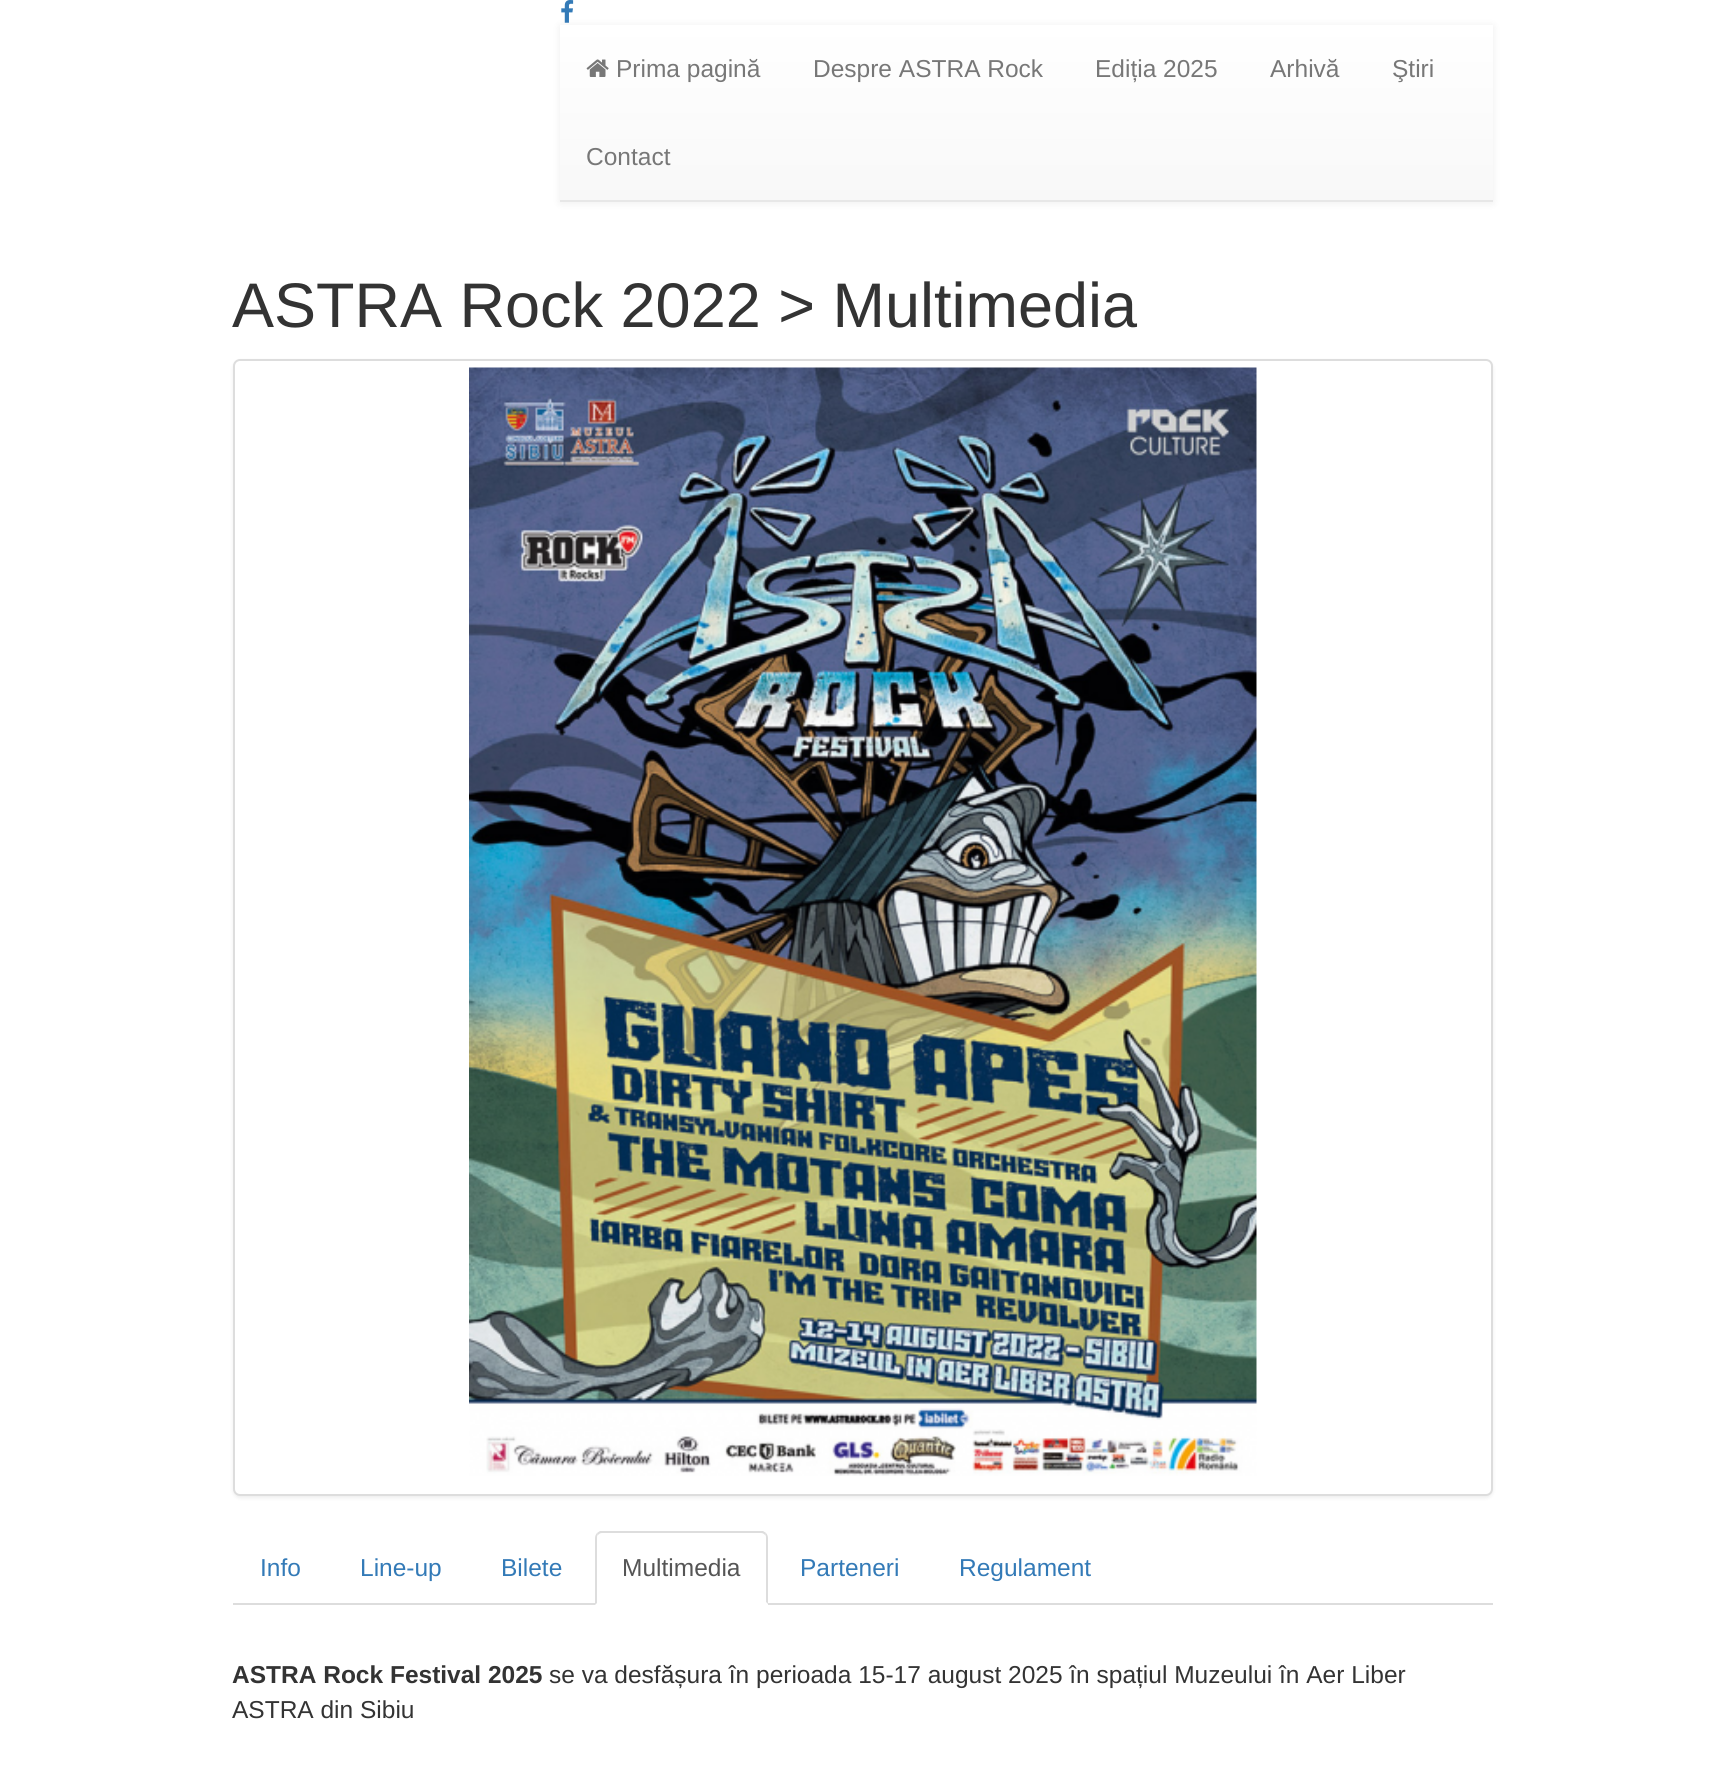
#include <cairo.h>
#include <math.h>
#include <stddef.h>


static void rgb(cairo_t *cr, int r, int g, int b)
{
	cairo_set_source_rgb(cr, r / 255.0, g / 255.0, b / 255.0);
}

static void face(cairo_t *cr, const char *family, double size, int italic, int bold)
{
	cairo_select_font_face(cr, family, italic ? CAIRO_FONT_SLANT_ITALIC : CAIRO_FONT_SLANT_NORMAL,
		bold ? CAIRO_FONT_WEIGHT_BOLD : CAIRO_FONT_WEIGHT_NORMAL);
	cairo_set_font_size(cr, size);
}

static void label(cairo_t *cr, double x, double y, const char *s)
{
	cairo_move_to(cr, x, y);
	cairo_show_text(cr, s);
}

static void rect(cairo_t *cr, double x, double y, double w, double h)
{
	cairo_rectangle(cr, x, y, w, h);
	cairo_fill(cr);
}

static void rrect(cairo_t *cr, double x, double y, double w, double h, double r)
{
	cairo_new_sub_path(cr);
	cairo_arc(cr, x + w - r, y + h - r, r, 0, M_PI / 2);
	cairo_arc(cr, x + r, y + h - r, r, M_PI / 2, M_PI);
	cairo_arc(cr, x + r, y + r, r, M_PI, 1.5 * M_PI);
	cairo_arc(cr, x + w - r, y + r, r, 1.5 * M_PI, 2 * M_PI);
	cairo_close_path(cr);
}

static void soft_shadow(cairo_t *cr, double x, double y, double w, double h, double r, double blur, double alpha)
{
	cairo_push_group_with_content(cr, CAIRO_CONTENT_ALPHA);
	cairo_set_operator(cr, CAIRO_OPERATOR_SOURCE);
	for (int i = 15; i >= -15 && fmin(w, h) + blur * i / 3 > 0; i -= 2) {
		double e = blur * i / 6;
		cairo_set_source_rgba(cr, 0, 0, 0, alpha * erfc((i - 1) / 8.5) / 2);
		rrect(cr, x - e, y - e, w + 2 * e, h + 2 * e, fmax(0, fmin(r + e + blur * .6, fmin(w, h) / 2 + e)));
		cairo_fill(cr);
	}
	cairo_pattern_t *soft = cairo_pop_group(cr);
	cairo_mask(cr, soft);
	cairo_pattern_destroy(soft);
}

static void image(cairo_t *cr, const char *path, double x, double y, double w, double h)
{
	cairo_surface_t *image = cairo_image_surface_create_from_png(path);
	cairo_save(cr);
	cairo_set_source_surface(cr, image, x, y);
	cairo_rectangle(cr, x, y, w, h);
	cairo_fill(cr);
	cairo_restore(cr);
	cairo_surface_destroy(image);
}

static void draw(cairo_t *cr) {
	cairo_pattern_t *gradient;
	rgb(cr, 255, 255, 255);
	cairo_paint(cr);
	image(cr, "image0.png", 561, 0, 13, 23);
	rgb(cr, 0, 0, 0);
	soft_shadow(cr, 560, 26, 933, 177, 0, 4.5, 0.07);
	gradient = cairo_pattern_create_linear(1026, 24, 1026, 200);
	cairo_pattern_add_color_stop_rgba(gradient, 0, 1, 1, 1, 1);
	cairo_pattern_add_color_stop_rgba(gradient, 1, 0.973, 0.973, 0.973, 1);
	cairo_set_source(cr, gradient);
	cairo_pattern_destroy(gradient);
	rect(cr, 560, 25, 933, 175);
	rgb(cr, 231, 231, 231);
	rect(cr, 560, 200, 933, 2);
	image(cr, "image1.png", 586, 59, 23, 18);
	face(cr, "Liberation Sans", 24.5, 0, 0);
	rgb(cr, 119, 119, 119);
	label(cr, 616, 77, "Prima pagină");
	label(cr, 813, 77, "Despre ASTRA Rock");
	label(cr, 1095, 77, "Ediția 2025");
	label(cr, 1270, 77, "Arhivă");
	label(cr, 1392, 77, "Ştiri");
	label(cr, 586, 165, "Contact");
	face(cr, "Liberation Sans", 63, 0, 0);
	rgb(cr, 51, 51, 51);
	label(cr, 232, 327, "ASTRA Rock 2022 > Multimedia");
	rgb(cr, 0, 0, 0);
	soft_shadow(cr, 233, 361, 1260, 1137, 7, 2, 0.07);
	rgb(cr, 255, 255, 255);
	rrect(cr, 234, 360, 1258, 1135, 6);
	cairo_fill_preserve(cr);
	rgb(cr, 221, 221, 221);
	cairo_stroke(cr);
	image(cr, "image2.png", 469, 367, 788, 1109);
	rect(cr, 233, 1603, 1260, 2);
	face(cr, "Liberation Sans", 24.5, 0, 0);
	rgb(cr, 51, 122, 183);
	label(cr, 260, 1576, "Info");
	label(cr, 360, 1576, "Line-up");
	label(cr, 501, 1576, "Bilete");
	rgb(cr, 255, 255, 255);
	cairo_new_path(cr);
	cairo_move_to(cr, 602, 1531);
	cairo_line_to(cr, 761, 1531);
	cairo_curve_to(cr, 765, 1531, 768, 1534, 768, 1538);
	cairo_line_to(cr, 768, 1605);
	cairo_line_to(cr, 595, 1605);
	cairo_line_to(cr, 595, 1538);
	cairo_curve_to(cr, 595, 1534, 598, 1531, 602, 1531);
	cairo_close_path(cr);
	cairo_fill(cr);
	rgb(cr, 221, 221, 221);
	cairo_new_path(cr);
	cairo_move_to(cr, 602, 1533);
	cairo_curve_to(cr, 600, 1533, 599, 1534, 598, 1535);
	cairo_line_to(cr, 597, 1533);
	cairo_line_to(cr, 600, 1531);
	cairo_line_to(cr, 763, 1531);
	cairo_line_to(cr, 766, 1533);
	cairo_line_to(cr, 765, 1535);
	cairo_curve_to(cr, 764, 1534, 763, 1533, 761, 1533);
	cairo_close_path(cr);
	cairo_fill(cr);
	cairo_new_path(cr);
	cairo_move_to(cr, 766, 1533);
	cairo_curve_to(cr, 767, 1534, 768, 1536, 768, 1538);
	cairo_line_to(cr, 768, 1604);
	cairo_line_to(cr, 766, 1602);
	cairo_line_to(cr, 766, 1538);
	cairo_curve_to(cr, 766, 1537, 766, 1535, 765, 1535);
	cairo_close_path(cr);
	cairo_fill(cr);
	cairo_new_path(cr);
	cairo_move_to(cr, 595, 1605);
	cairo_line_to(cr, 597, 1603);
	cairo_line_to(cr, 597, 1538);
	cairo_curve_to(cr, 597, 1537, 597, 1535, 598, 1535);
	cairo_line_to(cr, 597, 1533);
	cairo_curve_to(cr, 596, 1534, 595, 1536, 595, 1538);
	cairo_close_path(cr);
	cairo_fill(cr);
	rgb(cr, 85, 85, 85);
	label(cr, 622, 1576, "Multimedia");
	rgb(cr, 51, 122, 183);
	label(cr, 800, 1576, "Parteneri");
	label(cr, 959, 1576, "Regulament");
	face(cr, "Liberation Sans", 24.5, 0, 1);
	rgb(cr, 51, 51, 51);
	label(cr, 232, 1683, "ASTRA Rock Festival 2025");
	face(cr, "Liberation Sans", 24.5, 0, 0);
	label(cr, 549, 1683, "se va desfășura în perioada 15-17 august 2025 în spațiul Muzeului în Aer Liber");
	label(cr, 232, 1718, "ASTRA din Sibiu");
}

int main(void) {
	cairo_surface_t *surface = cairo_image_surface_create(CAIRO_FORMAT_RGB24, 1723, 1780);
	cairo_t *cr = cairo_create(surface);
	cairo_font_options_t *options = cairo_font_options_create();
	cairo_font_options_set_hint_metrics(options, CAIRO_HINT_METRICS_OFF);
	cairo_font_options_set_hint_style(options, CAIRO_HINT_STYLE_NONE);
	cairo_set_font_options(cr, options);
	cairo_set_miter_limit(cr, 4);
	draw(cr);
	cairo_surface_write_to_png(surface, "render.png");
	cairo_font_options_destroy(options);
	cairo_destroy(cr);
	cairo_surface_destroy(surface);
	return 0;
}
